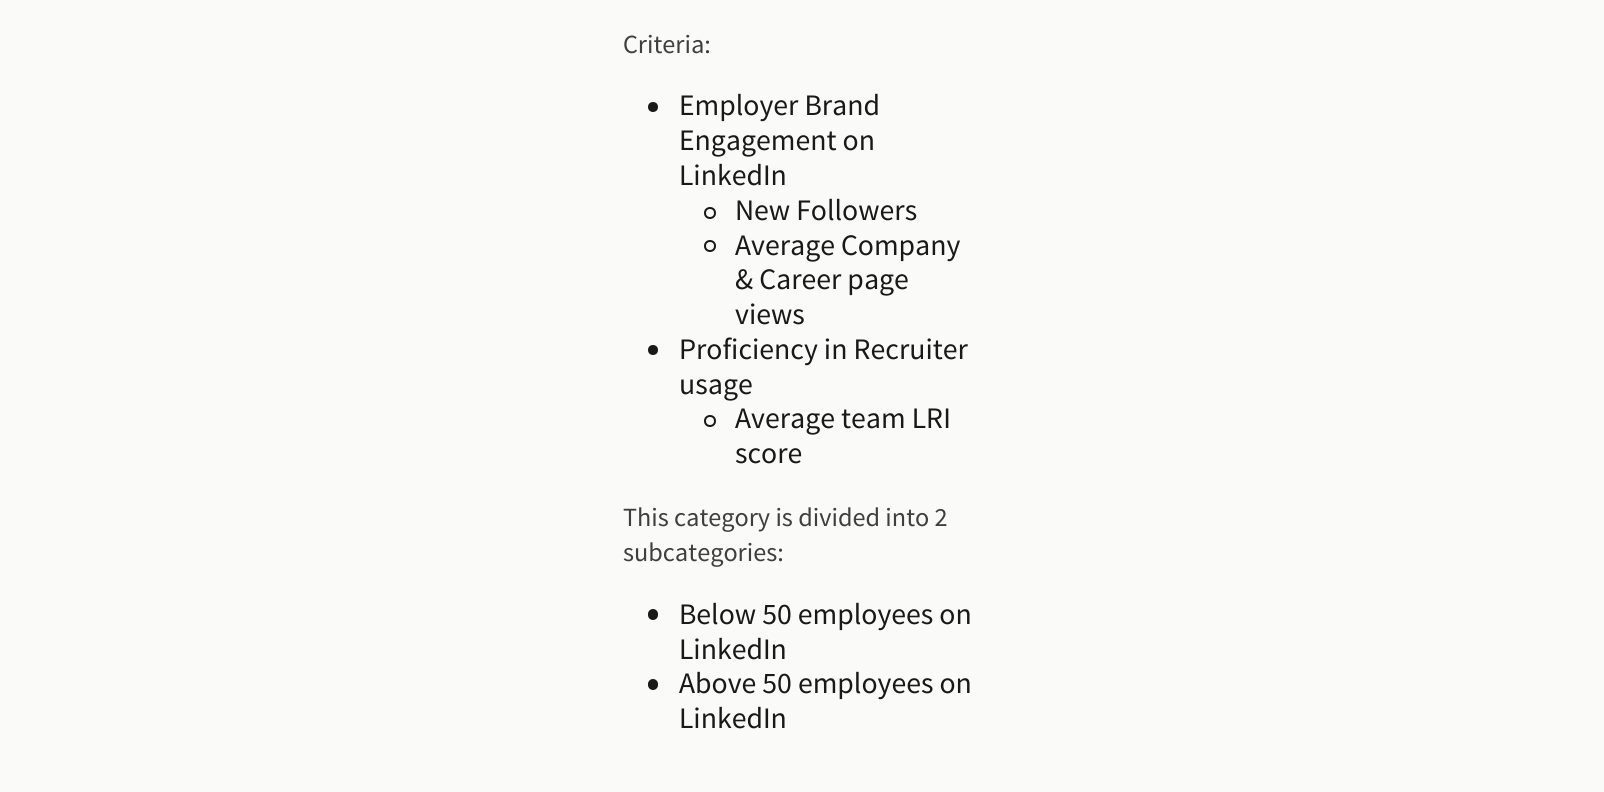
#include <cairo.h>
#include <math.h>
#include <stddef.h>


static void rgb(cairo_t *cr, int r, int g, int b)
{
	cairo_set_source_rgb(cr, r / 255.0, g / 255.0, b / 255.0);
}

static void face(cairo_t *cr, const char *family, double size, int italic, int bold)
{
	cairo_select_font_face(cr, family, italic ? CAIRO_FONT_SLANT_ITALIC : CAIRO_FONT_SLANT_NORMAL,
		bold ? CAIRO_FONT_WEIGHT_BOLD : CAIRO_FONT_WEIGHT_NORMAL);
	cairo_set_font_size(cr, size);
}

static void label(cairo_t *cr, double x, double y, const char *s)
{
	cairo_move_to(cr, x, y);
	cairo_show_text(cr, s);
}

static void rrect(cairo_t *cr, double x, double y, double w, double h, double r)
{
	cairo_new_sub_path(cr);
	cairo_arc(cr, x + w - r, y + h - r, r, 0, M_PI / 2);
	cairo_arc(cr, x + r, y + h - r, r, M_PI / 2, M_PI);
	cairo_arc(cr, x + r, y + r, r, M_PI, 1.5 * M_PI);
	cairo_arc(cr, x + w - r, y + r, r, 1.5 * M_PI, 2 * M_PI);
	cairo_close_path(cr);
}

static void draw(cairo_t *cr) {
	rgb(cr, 250, 250, 249);
	cairo_paint(cr);
	face(cr, "Source Sans Pro", 26.25, 0, 0);
	rgb(cr, 63, 63, 62);
	label(cr, 623, 53, "Criteria:");
	rgb(cr, 25, 25, 25);
	cairo_new_path(cr);
	cairo_arc(cr, 653, 107, 5, 0, 2 * M_PI);
	cairo_fill(cr);
	face(cr, "Source Sans Pro", 29.75, 0, 0);
	label(cr, 679, 115, "Employer Brand");
	label(cr, 679, 150, "Engagement on");
	label(cr, 679, 185, "LinkedIn");
	cairo_new_path(cr);
	cairo_arc(cr, 710, 213, 5, 0, 2 * M_PI);
	cairo_stroke(cr);
	label(cr, 735, 220, "New Followers");
	cairo_new_path(cr);
	cairo_arc(cr, 710, 246, 5, 0, 2 * M_PI);
	cairo_stroke(cr);
	label(cr, 735, 255, "Average Company");
	label(cr, 735, 289, "& Career page");
	label(cr, 735, 324, "views");
	cairo_new_path(cr);
	cairo_arc(cr, 653, 350, 5, 0, 2 * M_PI);
	cairo_fill(cr);
	label(cr, 679, 359, "Proficiency in Recruiter");
	label(cr, 679, 394, "usage");
	cairo_new_path(cr);
	cairo_arc(cr, 710, 421, 5, 0, 2 * M_PI);
	cairo_stroke(cr);
	label(cr, 735, 428, "Average team LRI");
	label(cr, 735, 463, "score");
	face(cr, "Source Sans Pro", 26.25, 0, 0);
	rgb(cr, 63, 63, 62);
	label(cr, 623, 526, "This category is divided into 2");
	label(cr, 623, 561, "subcategories:");
	rgb(cr, 25, 25, 25);
	rrect(cr, 648, 609, 10, 11, 5);
	cairo_fill(cr);
	face(cr, "Source Sans Pro", 29.75, 0, 0);
	label(cr, 679, 624, "Below 50 employees on");
	label(cr, 679, 659, "LinkedIn");
	rrect(cr, 648, 679, 10, 11, 5);
	cairo_fill(cr);
	label(cr, 679, 693, "Above 50 employees on");
	label(cr, 679, 728, "LinkedIn");
}

int main(void) {
	cairo_surface_t *surface = cairo_image_surface_create(CAIRO_FORMAT_RGB24, 1604, 792);
	cairo_t *cr = cairo_create(surface);
	cairo_font_options_t *options = cairo_font_options_create();
	cairo_font_options_set_hint_metrics(options, CAIRO_HINT_METRICS_OFF);
	cairo_font_options_set_hint_style(options, CAIRO_HINT_STYLE_NONE);
	cairo_set_font_options(cr, options);
	cairo_set_miter_limit(cr, 4);
	draw(cr);
	cairo_surface_write_to_png(surface, "render.png");
	cairo_font_options_destroy(options);
	cairo_destroy(cr);
	cairo_surface_destroy(surface);
	return 0;
}
